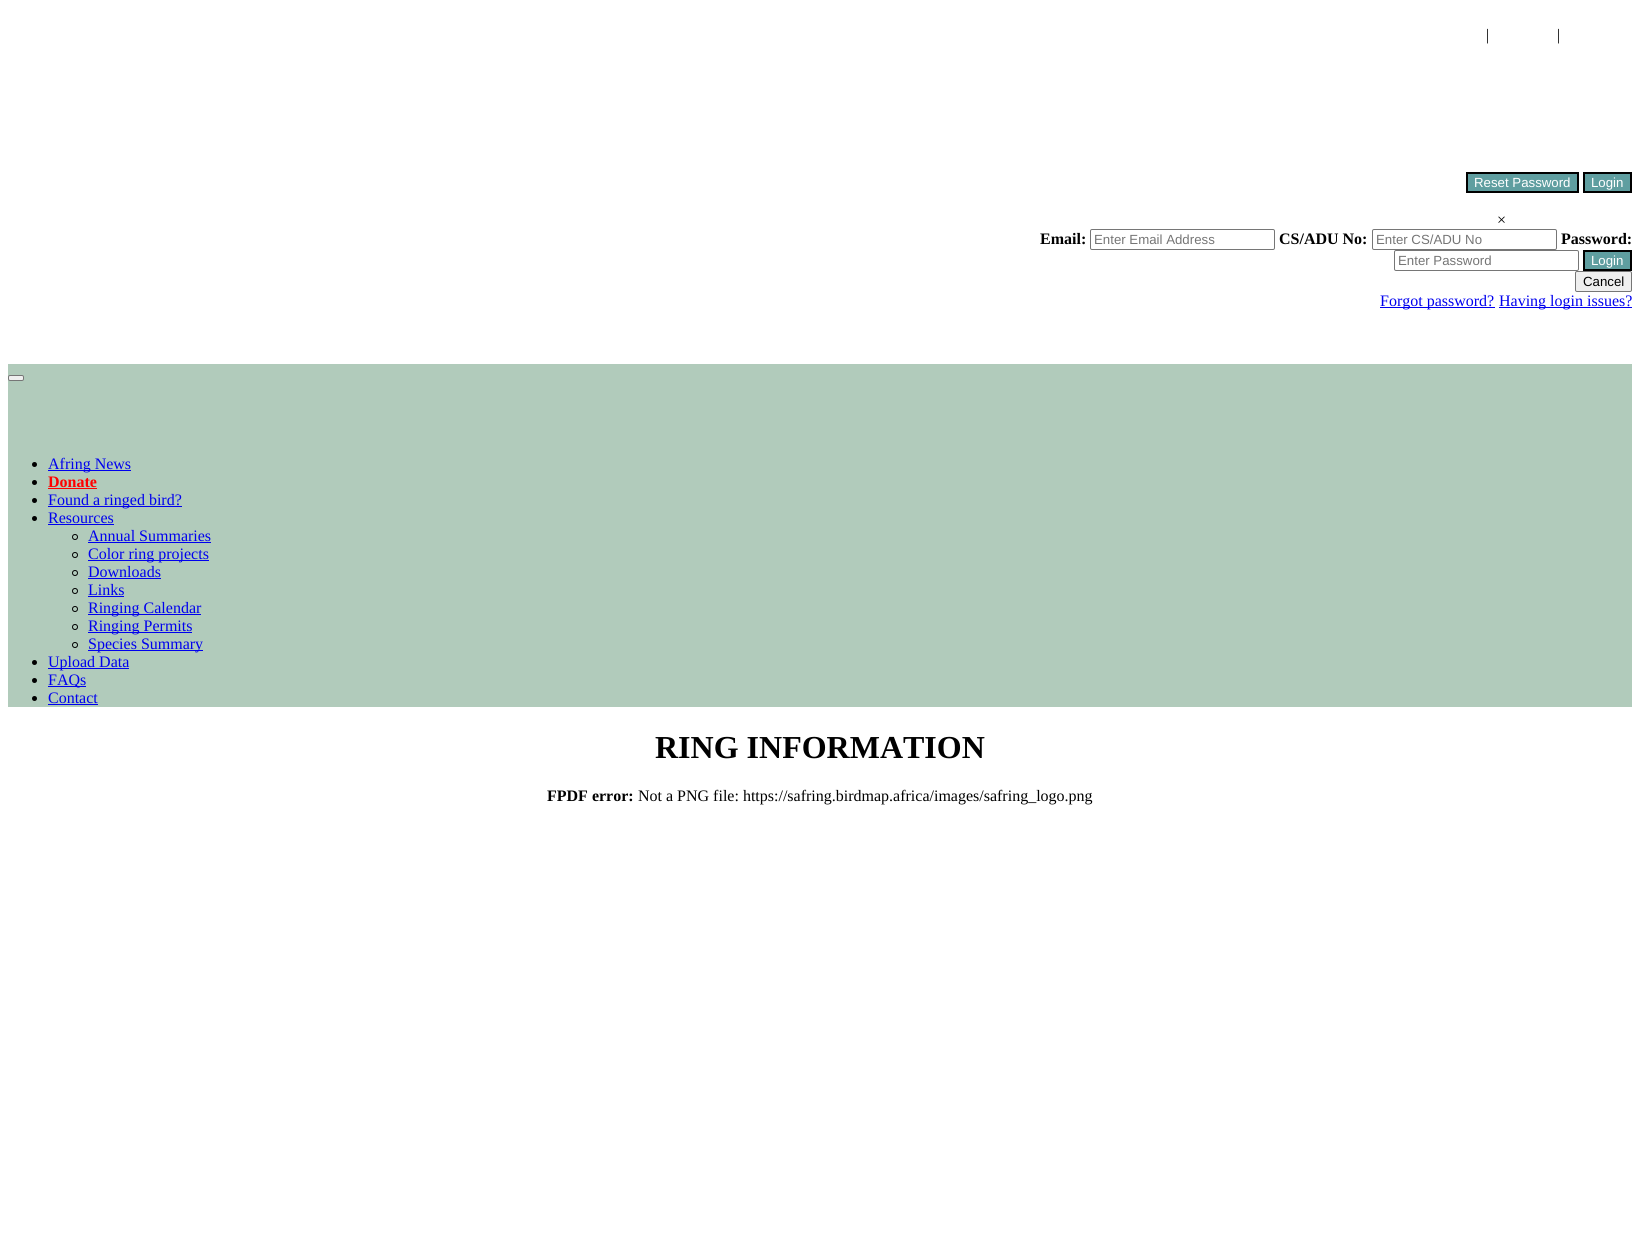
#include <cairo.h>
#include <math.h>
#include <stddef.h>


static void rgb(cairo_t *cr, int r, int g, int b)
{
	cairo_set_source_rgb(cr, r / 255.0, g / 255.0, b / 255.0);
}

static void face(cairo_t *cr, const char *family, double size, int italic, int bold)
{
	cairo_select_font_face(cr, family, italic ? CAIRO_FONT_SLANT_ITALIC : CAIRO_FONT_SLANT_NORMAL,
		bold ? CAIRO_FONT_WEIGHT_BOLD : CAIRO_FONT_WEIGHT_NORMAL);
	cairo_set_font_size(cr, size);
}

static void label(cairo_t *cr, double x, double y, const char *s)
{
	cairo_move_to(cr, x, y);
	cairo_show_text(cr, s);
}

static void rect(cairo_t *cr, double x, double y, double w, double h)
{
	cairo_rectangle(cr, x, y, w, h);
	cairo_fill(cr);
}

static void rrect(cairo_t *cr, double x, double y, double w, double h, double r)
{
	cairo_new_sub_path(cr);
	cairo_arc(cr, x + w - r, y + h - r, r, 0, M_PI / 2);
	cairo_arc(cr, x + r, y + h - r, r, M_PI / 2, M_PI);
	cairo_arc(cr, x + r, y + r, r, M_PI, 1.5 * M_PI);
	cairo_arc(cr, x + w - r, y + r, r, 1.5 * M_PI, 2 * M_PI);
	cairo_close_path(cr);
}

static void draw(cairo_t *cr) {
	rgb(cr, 255, 255, 255);
	cairo_paint(cr);
	face(cr, "Liberation Serif", 16, 0, 0);
	rgb(cr, 0, 0, 0);
	label(cr, 1486, 40, "|");
	label(cr, 1557, 40, "|");
	rgb(cr, 95, 158, 160);
	cairo_rectangle(cr, 1467, 173, 111, 19);
	cairo_fill_preserve(cr);
	rgb(cr, 0, 0, 0);
	cairo_stroke(cr);
	face(cr, "Liberation Sans", 13.25, 0, 0);
	rgb(cr, 255, 255, 255);
	label(cr, 1474, 187, "Reset Password");
	rgb(cr, 95, 158, 160);
	cairo_rectangle(cr, 1584, 173, 47, 19);
	cairo_fill_preserve(cr);
	rgb(cr, 0, 0, 0);
	cairo_stroke(cr);
	rgb(cr, 255, 255, 255);
	label(cr, 1591, 187, "Login");
	face(cr, "Liberation Serif", 16, 0, 0);
	rgb(cr, 0, 0, 0);
	label(cr, 1497, 225, "×");
	face(cr, "Liberation Serif", 16, 0, 1);
	label(cr, 1040, 244, "Email:");
	rrect(cr, 1090.5, 229.5, 184, 20, 1.5);
	rgb(cr, 118, 118, 118);
	cairo_set_line_width(cr, 1);
	cairo_stroke(cr);
	face(cr, "Liberation Sans", 13.25, 0, 0);
	rgb(cr, 117, 117, 117);
	label(cr, 1094, 244, "Enter Email Address");
	face(cr, "Liberation Serif", 16, 0, 1);
	rgb(cr, 0, 0, 0);
	label(cr, 1279, 244, "CS/ADU No:");
	rrect(cr, 1372.5, 229.5, 184, 20, 1.5);
	rgb(cr, 118, 118, 118);
	cairo_stroke(cr);
	face(cr, "Liberation Sans", 13.25, 0, 0);
	rgb(cr, 117, 117, 117);
	label(cr, 1376, 244, "Enter CS/ADU No");
	face(cr, "Liberation Serif", 16, 0, 1);
	rgb(cr, 0, 0, 0);
	label(cr, 1561, 244, "Password:");
	rrect(cr, 1394.5, 250.5, 184, 20, 1.5);
	rgb(cr, 118, 118, 118);
	cairo_stroke(cr);
	face(cr, "Liberation Sans", 13.25, 0, 0);
	rgb(cr, 117, 117, 117);
	label(cr, 1398, 265, "Enter Password");
	rgb(cr, 95, 158, 160);
	cairo_rectangle(cr, 1584, 251, 47, 19);
	cairo_fill_preserve(cr);
	rgb(cr, 0, 0, 0);
	cairo_set_line_width(cr, 2);
	cairo_stroke(cr);
	rgb(cr, 255, 255, 255);
	label(cr, 1591, 265, "Login");
	rgb(cr, 239, 239, 239);
	rrect(cr, 1575.5, 271.5, 56, 20, 1.5);
	cairo_fill_preserve(cr);
	rgb(cr, 118, 118, 118);
	cairo_set_line_width(cr, 1);
	cairo_stroke(cr);
	rgb(cr, 0, 0, 0);
	label(cr, 1583, 286, "Cancel");
	rgb(cr, 0, 0, 238);
	rect(cr, 1380, 307, 115, 1);
	face(cr, "Liberation Serif", 16, 0, 0);
	label(cr, 1380, 306, "Forgot password?");
	rect(cr, 1499, 307, 133, 1);
	label(cr, 1499, 306, "Having login issues?");
	rgb(cr, 177, 203, 187);
	rect(cr, 8, 364, 1624, 343);
	rgb(cr, 239, 239, 239);
	rrect(cr, 8.5, 375.5, 15, 5, 1.5);
	cairo_fill_preserve(cr);
	rgb(cr, 118, 118, 118);
	cairo_stroke(cr);
	rgb(cr, 0, 0, 0);
	cairo_arc(cr, 34.5, 464.5, 2.5, 0, 2 * M_PI);
	cairo_fill(cr);
	rgb(cr, 0, 0, 238);
	rect(cr, 48, 470, 83, 1);
	label(cr, 48, 469, "Afring News");
	rgb(cr, 0, 0, 0);
	cairo_new_path(cr);
	cairo_arc(cr, 34.5, 482.5, 2.5, 0, 2 * M_PI);
	cairo_fill(cr);
	face(cr, "Liberation Serif", 16, 0, 1);
	rgb(cr, 255, 0, 0);
	label(cr, 48, 487, "Donate");
	rect(cr, 48, 488, 49, 1);
	rgb(cr, 0, 0, 0);
	cairo_new_path(cr);
	cairo_arc(cr, 34.5, 500.5, 2.5, 0, 2 * M_PI);
	cairo_fill(cr);
	rgb(cr, 0, 0, 238);
	rect(cr, 48, 506, 134, 1);
	face(cr, "Liberation Serif", 16, 0, 0);
	label(cr, 48, 505, "Found a ringed bird?");
	rgb(cr, 0, 0, 0);
	cairo_new_path(cr);
	cairo_arc(cr, 34.5, 518.5, 2.5, 0, 2 * M_PI);
	cairo_fill(cr);
	rgb(cr, 0, 0, 238);
	label(cr, 48, 523, "Resources");
	rect(cr, 48, 524, 66, 1);
	cairo_new_path(cr);
	cairo_arc(cr, 75, 537, 2.5, 0, 2 * M_PI);
	rgb(cr, 0, 0, 0);
	cairo_stroke(cr);
	rgb(cr, 0, 0, 238);
	label(cr, 88, 541, "Annual Summaries");
	rect(cr, 88, 542, 123, 1);
	cairo_new_path(cr);
	cairo_arc(cr, 75, 555, 2.5, 0, 2 * M_PI);
	rgb(cr, 0, 0, 0);
	cairo_stroke(cr);
	rgb(cr, 0, 0, 238);
	rect(cr, 88, 560, 121, 1);
	label(cr, 88, 559, "Color ring projects");
	cairo_new_path(cr);
	cairo_arc(cr, 75, 573, 2.5, 0, 2 * M_PI);
	rgb(cr, 0, 0, 0);
	cairo_stroke(cr);
	rgb(cr, 0, 0, 238);
	label(cr, 88, 577, "Downloads");
	rect(cr, 88, 578, 73, 1);
	cairo_new_path(cr);
	cairo_arc(cr, 75, 591, 2.5, 0, 2 * M_PI);
	rgb(cr, 0, 0, 0);
	cairo_stroke(cr);
	rgb(cr, 0, 0, 238);
	label(cr, 88, 595, "Links");
	rect(cr, 88, 596, 36, 1);
	cairo_new_path(cr);
	cairo_arc(cr, 75, 609, 2.5, 0, 2 * M_PI);
	rgb(cr, 0, 0, 0);
	cairo_stroke(cr);
	rgb(cr, 0, 0, 238);
	rect(cr, 88, 614, 113, 1);
	label(cr, 88, 613, "Ringing Calendar");
	cairo_new_path(cr);
	cairo_arc(cr, 75, 627, 2.5, 0, 2 * M_PI);
	rgb(cr, 0, 0, 0);
	cairo_stroke(cr);
	rgb(cr, 0, 0, 238);
	rect(cr, 88, 632, 104, 1);
	label(cr, 88, 631, "Ringing Permits");
	cairo_new_path(cr);
	cairo_arc(cr, 75, 645, 2.5, 0, 2 * M_PI);
	rgb(cr, 0, 0, 0);
	cairo_stroke(cr);
	rgb(cr, 0, 0, 238);
	rect(cr, 88, 650, 115, 1);
	label(cr, 88, 649, "Species Summary");
	rgb(cr, 0, 0, 0);
	cairo_new_path(cr);
	cairo_arc(cr, 34.5, 662.5, 2.5, 0, 2 * M_PI);
	cairo_fill(cr);
	rgb(cr, 0, 0, 238);
	rect(cr, 48, 668, 81, 1);
	label(cr, 48, 667, "Upload Data");
	rgb(cr, 0, 0, 0);
	cairo_new_path(cr);
	cairo_arc(cr, 34.5, 680.5, 2.5, 0, 2 * M_PI);
	cairo_fill(cr);
	rgb(cr, 0, 0, 238);
	rect(cr, 48, 686, 38, 1);
	label(cr, 48, 685, "FAQs");
	rgb(cr, 0, 0, 0);
	cairo_new_path(cr);
	cairo_arc(cr, 34.5, 698.5, 2.5, 0, 2 * M_PI);
	cairo_fill(cr);
	rgb(cr, 0, 0, 238);
	label(cr, 48, 703, "Contact");
	rect(cr, 48, 704, 50, 1);
	face(cr, "Liberation Serif", 32, 0, 1);
	rgb(cr, 0, 0, 0);
	label(cr, 655, 758, "RING INFORMATION");
	face(cr, "Liberation Serif", 16, 0, 1);
	label(cr, 547, 801, "FPDF error:");
	face(cr, "Liberation Serif", 16, 0, 0);
	label(cr, 638, 801, "Not a PNG file: https://safring.birdmap.africa/images/safring_logo.png");
}

int main(void) {
	cairo_surface_t *surface = cairo_image_surface_create(CAIRO_FORMAT_RGB24, 1640, 1236);
	cairo_t *cr = cairo_create(surface);
	cairo_font_options_t *options = cairo_font_options_create();
	cairo_font_options_set_hint_metrics(options, CAIRO_HINT_METRICS_OFF);
	cairo_font_options_set_hint_style(options, CAIRO_HINT_STYLE_NONE);
	cairo_set_font_options(cr, options);
	cairo_set_miter_limit(cr, 4);
	draw(cr);
	cairo_surface_write_to_png(surface, "render.png");
	cairo_font_options_destroy(options);
	cairo_destroy(cr);
	cairo_surface_destroy(surface);
	return 0;
}
